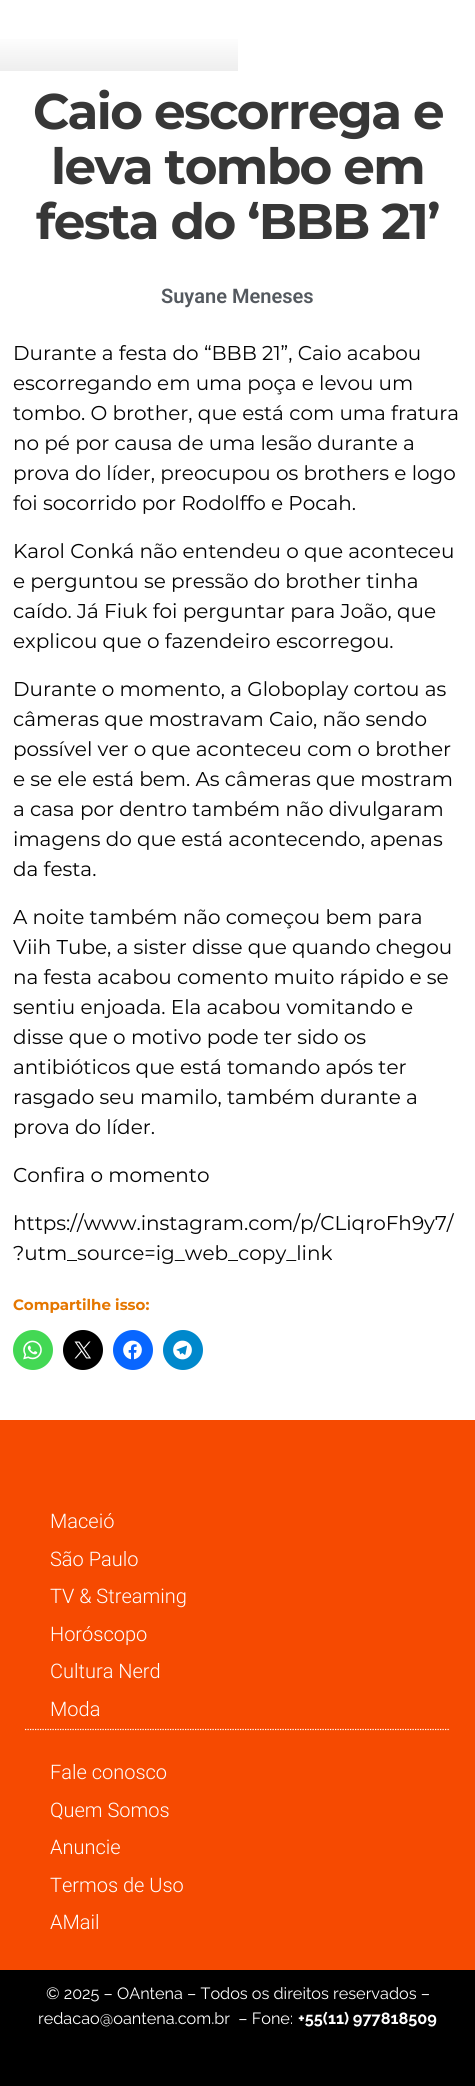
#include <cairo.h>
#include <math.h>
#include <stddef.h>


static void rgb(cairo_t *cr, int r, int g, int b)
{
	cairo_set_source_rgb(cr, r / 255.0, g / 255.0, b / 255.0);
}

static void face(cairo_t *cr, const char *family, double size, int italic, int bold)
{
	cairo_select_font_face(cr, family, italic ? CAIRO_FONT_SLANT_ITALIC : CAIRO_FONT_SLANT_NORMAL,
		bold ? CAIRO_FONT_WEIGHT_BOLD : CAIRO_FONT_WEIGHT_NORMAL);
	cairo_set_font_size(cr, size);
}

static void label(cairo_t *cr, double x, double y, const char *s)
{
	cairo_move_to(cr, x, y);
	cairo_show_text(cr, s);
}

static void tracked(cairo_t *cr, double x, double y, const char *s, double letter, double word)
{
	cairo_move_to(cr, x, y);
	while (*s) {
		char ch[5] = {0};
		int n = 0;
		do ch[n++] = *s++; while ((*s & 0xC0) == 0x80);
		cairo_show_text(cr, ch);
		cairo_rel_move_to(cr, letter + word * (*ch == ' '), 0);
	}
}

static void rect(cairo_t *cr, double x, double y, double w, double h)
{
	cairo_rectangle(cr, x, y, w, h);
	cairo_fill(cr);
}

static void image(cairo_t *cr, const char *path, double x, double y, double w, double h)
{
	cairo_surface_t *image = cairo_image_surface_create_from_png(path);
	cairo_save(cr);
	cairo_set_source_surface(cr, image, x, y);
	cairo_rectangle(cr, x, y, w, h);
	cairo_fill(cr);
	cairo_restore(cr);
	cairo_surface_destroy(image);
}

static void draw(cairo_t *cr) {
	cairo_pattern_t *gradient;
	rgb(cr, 255, 255, 255);
	cairo_paint(cr);
	gradient = cairo_pattern_create_linear(119, 34, 119, 71);
	cairo_pattern_add_color_stop_rgba(gradient, 0, 1, 1, 1, 1);
	cairo_pattern_add_color_stop_rgba(gradient, 1, 0.933, 0.933, 0.933, 1);
	cairo_set_source(cr, gradient);
	cairo_pattern_destroy(gradient);
	rect(cr, 0, 39, 238, 32);
	face(cr, "Montserrat", 50, 0, 1);
	rgb(cr, 55, 55, 55);
	tracked(cr, 33, 129, "Caio escorrega e", -1.6, 0);
	tracked(cr, 51, 184, "leva tombo em", -1.6, 0);
	tracked(cr, 36, 239, "festa do ‘BBB 21’", -1.6, 0);
	face(cr, "Roboto SemiBold", 20, 0, 0);
	rgb(cr, 84, 89, 95);
	label(cr, 161, 303, "Suyane Meneses");
	face(cr, "Montserrat", 20, 0, 0);
	rgb(cr, 4, 4, 4);
	label(cr, 13, 360, "Durante a festa do “BBB 21”, Caio acabou");
	label(cr, 13, 390, "escorregando em uma poça e levou um");
	label(cr, 13, 420, "tombo. O brother, que está com uma fratura");
	label(cr, 13, 450, "no pé por causa de uma lesão durante a");
	label(cr, 13, 480, "prova do líder, preocupou os brothers e logo");
	label(cr, 13, 510, "foi socorrido por Rodolffo e Pocah.");
	label(cr, 13, 558, "Karol Conká não entendeu o que aconteceu");
	label(cr, 13, 588, "e perguntou se pressão do brother tinha");
	label(cr, 13, 618, "caído. Já Fiuk foi perguntar para João, que");
	label(cr, 13, 648, "explicou que o fazendeiro escorregou.");
	label(cr, 13, 696, "Durante o momento, a Globoplay cortou as");
	label(cr, 13, 726, "câmeras que mostravam Caio, não sendo");
	label(cr, 13, 756, "possível ver o que aconteceu com o brother");
	label(cr, 13, 786, "e se ele está bem. As câmeras que mostram");
	label(cr, 13, 816, "a casa por dentro também não divulgaram");
	label(cr, 13, 846, "imagens do que está acontecendo, apenas");
	label(cr, 13, 876, "da festa.");
	label(cr, 13, 924, "A noite também não começou bem para");
	label(cr, 13, 954, "Viih Tube, a sister disse que quando chegou");
	label(cr, 13, 984, "na festa acabou comento muito rápido e se");
	label(cr, 13, 1014, "sentiu enjoada. Ela acabou vomitando e");
	label(cr, 13, 1044, "disse que o motivo pode ter sido os");
	label(cr, 13, 1074, "antibióticos que está tomando após ter");
	label(cr, 13, 1104, "rasgado seu mamilo, também durante a");
	label(cr, 13, 1134, "prova do líder.");
	label(cr, 13, 1182, "Confira o momento");
	label(cr, 13, 1230, "https://www.instagram.com/p/CLiqroFh9y7/");
	label(cr, 13, 1260, "?utm_source=ig_web_copy_link");
	face(cr, "Montserrat", 15, 0, 1);
	rgb(cr, 229, 119, 0);
	label(cr, 13, 1310, "Compartilhe isso:");
	rgb(cr, 67, 216, 84);
	cairo_new_path(cr);
	cairo_arc(cr, 33, 1350, 20, 0, 2 * M_PI);
	cairo_fill(cr);
	image(cr, "image0.png", 23, 1340, 19, 20);
	rgb(cr, 0, 0, 0);
	cairo_arc(cr, 83, 1350, 20, 0, 2 * M_PI);
	cairo_fill(cr);
	image(cr, "image1.png", 74, 1341, 17, 18);
	rgb(cr, 8, 102, 255);
	cairo_arc(cr, 133, 1350, 20, 0, 2 * M_PI);
	cairo_fill(cr);
	image(cr, "image2.png", 123, 1340, 19, 20);
	rgb(cr, 0, 136, 204);
	cairo_arc(cr, 183, 1350, 20, 0, 2 * M_PI);
	cairo_fill(cr);
	image(cr, "image3.png", 173, 1340, 19, 20);
	rgb(cr, 246, 74, 1);
	rect(cr, 0, 1420, 475, 550);
	cairo_new_path(cr);
	cairo_move_to(cr, 25, 1729.5);
	cairo_line_to(cr, 450, 1729.5);
	rgb(cr, 255, 255, 255);
	cairo_set_line_width(cr, 1.2);
	cairo_set_dash(cr, (double[]){1.25, 1.25}, 2, 0);
	cairo_stroke(cr);
	face(cr, "Roboto Light", 20, 0, 0);
	label(cr, 50, 1528, "Maceió");
	label(cr, 50, 1566, "São Paulo");
	label(cr, 50, 1603, "TV & Streaming");
	label(cr, 50, 1641, "Horóscopo");
	label(cr, 50, 1678, "Cultura Nerd");
	label(cr, 50, 1716, "Moda");
	label(cr, 50, 1779, "Fale conosco");
	label(cr, 50, 1817, "Quem Somos");
	label(cr, 50, 1854, "Anuncie");
	label(cr, 50, 1892, "Termos de Uso");
	label(cr, 50, 1929, "AMail");
	rgb(cr, 0, 0, 0);
	rect(cr, 0, 1970, 475, 116);
	face(cr, "Raleway", 16.25, 0, 0);
	rgb(cr, 255, 255, 255);
	label(cr, 46, 1999, "© 2025 – OAntena – Todos os direitos reservados –");
	label(cr, 38, 2024, "redacao@oantena.com.br  – Fone:");
	face(cr, "Raleway", 16.25, 0, 1);
	label(cr, 298, 2024, "+55(11) 977818509");
}

int main(void) {
	cairo_surface_t *surface = cairo_image_surface_create(CAIRO_FORMAT_RGB24, 475, 2086);
	cairo_t *cr = cairo_create(surface);
	cairo_font_options_t *options = cairo_font_options_create();
	cairo_font_options_set_hint_metrics(options, CAIRO_HINT_METRICS_OFF);
	cairo_font_options_set_hint_style(options, CAIRO_HINT_STYLE_NONE);
	cairo_set_font_options(cr, options);
	cairo_set_miter_limit(cr, 4);
	draw(cr);
	cairo_surface_write_to_png(surface, "render.png");
	cairo_font_options_destroy(options);
	cairo_destroy(cr);
	cairo_surface_destroy(surface);
	return 0;
}
